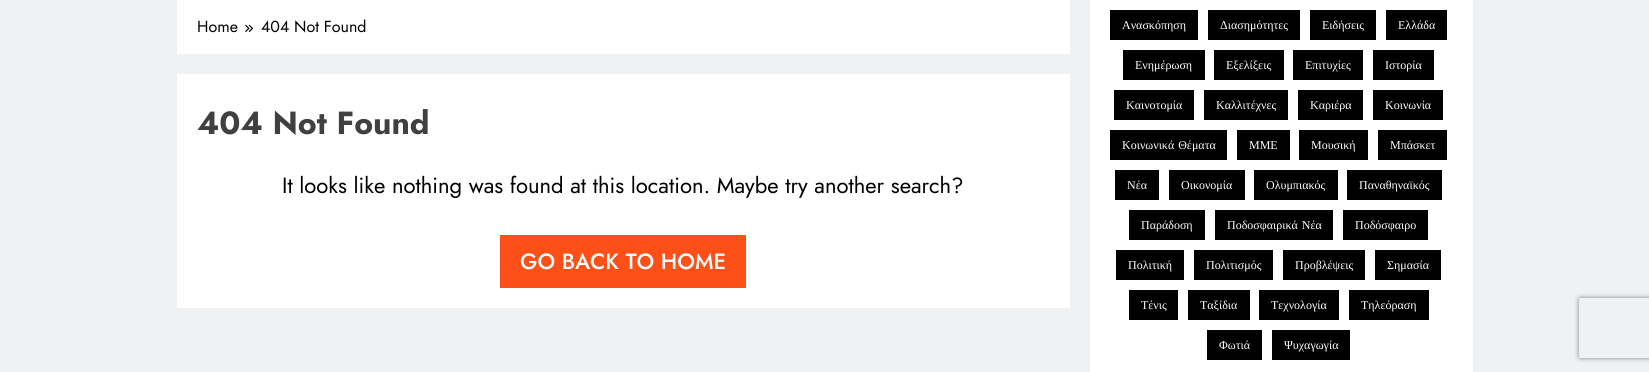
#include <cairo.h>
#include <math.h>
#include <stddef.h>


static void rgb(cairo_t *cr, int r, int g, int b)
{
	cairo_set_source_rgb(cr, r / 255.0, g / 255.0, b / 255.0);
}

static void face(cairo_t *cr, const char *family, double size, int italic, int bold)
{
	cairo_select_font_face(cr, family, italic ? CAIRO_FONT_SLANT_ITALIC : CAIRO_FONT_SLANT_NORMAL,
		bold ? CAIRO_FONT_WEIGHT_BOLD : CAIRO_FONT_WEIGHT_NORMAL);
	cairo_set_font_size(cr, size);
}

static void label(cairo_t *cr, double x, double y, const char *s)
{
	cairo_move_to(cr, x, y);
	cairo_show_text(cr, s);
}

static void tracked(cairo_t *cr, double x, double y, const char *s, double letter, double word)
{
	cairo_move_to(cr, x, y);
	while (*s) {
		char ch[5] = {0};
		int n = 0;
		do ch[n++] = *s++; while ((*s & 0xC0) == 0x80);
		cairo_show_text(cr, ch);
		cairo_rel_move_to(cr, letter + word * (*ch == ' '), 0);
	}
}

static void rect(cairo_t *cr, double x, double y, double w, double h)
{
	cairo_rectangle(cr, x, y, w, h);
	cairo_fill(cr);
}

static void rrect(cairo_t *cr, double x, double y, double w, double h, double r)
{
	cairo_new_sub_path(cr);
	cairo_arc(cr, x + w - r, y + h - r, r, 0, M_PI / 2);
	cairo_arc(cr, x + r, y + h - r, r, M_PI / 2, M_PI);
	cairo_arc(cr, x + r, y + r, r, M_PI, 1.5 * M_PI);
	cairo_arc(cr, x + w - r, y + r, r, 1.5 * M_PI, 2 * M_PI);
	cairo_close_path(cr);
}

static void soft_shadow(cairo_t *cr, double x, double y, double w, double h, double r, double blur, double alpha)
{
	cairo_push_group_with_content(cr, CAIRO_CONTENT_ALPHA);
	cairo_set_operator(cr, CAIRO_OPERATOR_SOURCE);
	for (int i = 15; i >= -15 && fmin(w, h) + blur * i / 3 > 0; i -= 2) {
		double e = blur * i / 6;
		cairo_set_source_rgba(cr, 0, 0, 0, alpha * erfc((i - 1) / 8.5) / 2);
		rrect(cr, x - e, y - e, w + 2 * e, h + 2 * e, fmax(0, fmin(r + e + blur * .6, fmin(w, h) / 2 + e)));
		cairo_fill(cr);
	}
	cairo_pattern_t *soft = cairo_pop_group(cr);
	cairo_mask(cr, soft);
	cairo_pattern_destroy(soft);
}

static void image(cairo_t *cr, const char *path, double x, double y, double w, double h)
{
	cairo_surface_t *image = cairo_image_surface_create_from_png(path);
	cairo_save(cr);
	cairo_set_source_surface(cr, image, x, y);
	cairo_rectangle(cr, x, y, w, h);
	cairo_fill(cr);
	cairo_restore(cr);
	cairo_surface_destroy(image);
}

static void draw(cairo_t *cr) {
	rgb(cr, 240, 241, 242);
	cairo_paint(cr);
	rgb(cr, 255, 255, 255);
	rect(cr, 177, 0, 893, 54);
	face(cr, "Jost", 16, 0, 0);
	rgb(cr, 0, 0, 0);
	label(cr, 197, 32, "Home");
	image(cr, "image0.png", 245, 24, 8, 8);
	label(cr, 261, 32, "404 Not Found");
	rgb(cr, 255, 255, 255);
	rect(cr, 177, 74, 893, 234);
	face(cr, "Jost", 32, 0, 1);
	rgb(cr, 64, 64, 64);
	label(cr, 197, 134, "404 Not Found");
	face(cr, "Jost", 22, 0, 0);
	rgb(cr, 0, 0, 0);
	label(cr, 282, 193, "It looks like nothing was found at this location. Maybe try another search?");
	rgb(cr, 253, 79, 24);
	rect(cr, 500, 235, 246, 53);
	face(cr, "Jost Medium", 22, 0, 0);
	rgb(cr, 255, 255, 255);
	label(cr, 520, 269, "GO BACK TO HOME");
	rect(cr, 1090, 0, 383, 372);
	rgb(cr, 0, 0, 0);
	rect(cr, 1110, 10, 88, 30);
	face(cr, "Liberation Serif", 12, 0, 0);
	rgb(cr, 255, 255, 255);
	label(cr, 1122, 29, "Ανασκόπηση");
	rgb(cr, 0, 0, 0);
	rect(cr, 1208, 10, 92, 30);
	rgb(cr, 255, 255, 255);
	label(cr, 1220, 29, "Διασημότητες");
	rgb(cr, 0, 0, 0);
	rect(cr, 1310, 10, 66, 30);
	rgb(cr, 255, 255, 255);
	label(cr, 1322, 29, "Ειδήσεις");
	rgb(cr, 0, 0, 0);
	rect(cr, 1386, 10, 61, 30);
	rgb(cr, 255, 255, 255);
	label(cr, 1398, 29, "Ελλάδα");
	rgb(cr, 0, 0, 0);
	rect(cr, 1123, 50, 82, 30);
	rgb(cr, 255, 255, 255);
	label(cr, 1135, 69, "Ενημέρωση");
	rgb(cr, 0, 0, 0);
	rect(cr, 1214, 50, 70, 30);
	rgb(cr, 255, 255, 255);
	label(cr, 1226, 69, "Εξελίξεις");
	rgb(cr, 0, 0, 0);
	rect(cr, 1293, 50, 70, 30);
	rgb(cr, 255, 255, 255);
	label(cr, 1305, 69, "Επιτυχίες");
	rgb(cr, 0, 0, 0);
	rect(cr, 1373, 50, 61, 30);
	rgb(cr, 255, 255, 255);
	label(cr, 1385, 69, "Ιστορία");
	rgb(cr, 0, 0, 0);
	rect(cr, 1114, 90, 80, 30);
	rgb(cr, 255, 255, 255);
	label(cr, 1126, 109, "Καινοτομία");
	rgb(cr, 0, 0, 0);
	rect(cr, 1204, 90, 84, 30);
	rgb(cr, 255, 255, 255);
	label(cr, 1216, 109, "Καλλιτέχνες");
	rgb(cr, 0, 0, 0);
	rect(cr, 1298, 90, 65, 30);
	rgb(cr, 255, 255, 255);
	label(cr, 1310, 109, "Καριέρα");
	rgb(cr, 0, 0, 0);
	rect(cr, 1373, 90, 70, 30);
	rgb(cr, 255, 255, 255);
	label(cr, 1385, 109, "Κοινωνία");
	rgb(cr, 0, 0, 0);
	rect(cr, 1110, 130, 117, 30);
	rgb(cr, 255, 255, 255);
	tracked(cr, 1122, 149, "Κοινωνικά Θέματα", 0, 1);
	rgb(cr, 0, 0, 0);
	rect(cr, 1237, 130, 53, 30);
	rgb(cr, 255, 255, 255);
	label(cr, 1249, 149, "ΜΜΕ");
	rgb(cr, 0, 0, 0);
	rect(cr, 1299, 130, 69, 30);
	rgb(cr, 255, 255, 255);
	label(cr, 1311, 149, "Μουσική");
	rgb(cr, 0, 0, 0);
	rect(cr, 1378, 130, 69, 30);
	rgb(cr, 255, 255, 255);
	label(cr, 1390, 149, "Μπάσκετ");
	rgb(cr, 0, 0, 0);
	rect(cr, 1115, 170, 44, 30);
	rgb(cr, 255, 255, 255);
	label(cr, 1127, 189, "Νέα");
	rgb(cr, 0, 0, 0);
	rect(cr, 1169, 170, 76, 30);
	rgb(cr, 255, 255, 255);
	label(cr, 1181, 189, "Οικονομία");
	rgb(cr, 0, 0, 0);
	rect(cr, 1254, 170, 84, 30);
	rgb(cr, 255, 255, 255);
	label(cr, 1266, 189, "Ολυμπιακός");
	rgb(cr, 0, 0, 0);
	rect(cr, 1347, 170, 95, 30);
	rgb(cr, 255, 255, 255);
	label(cr, 1359, 189, "Παναθηναϊκός");
	rgb(cr, 0, 0, 0);
	rect(cr, 1129, 210, 76, 30);
	rgb(cr, 255, 255, 255);
	label(cr, 1141, 229, "Παράδοση");
	rgb(cr, 0, 0, 0);
	rect(cr, 1215, 210, 118, 30);
	rgb(cr, 255, 255, 255);
	tracked(cr, 1227, 229, "Ποδοσφαιρικά Νέα", 0, 1);
	rgb(cr, 0, 0, 0);
	rect(cr, 1343, 210, 85, 30);
	rgb(cr, 255, 255, 255);
	label(cr, 1355, 229, "Ποδόσφαιρο");
	rgb(cr, 0, 0, 0);
	rect(cr, 1116, 250, 68, 30);
	rgb(cr, 255, 255, 255);
	label(cr, 1128, 269, "Πολιτική");
	rgb(cr, 0, 0, 0);
	rect(cr, 1194, 250, 79, 30);
	rgb(cr, 255, 255, 255);
	label(cr, 1206, 269, "Πολιτισμός");
	rgb(cr, 0, 0, 0);
	rect(cr, 1283, 250, 82, 30);
	rgb(cr, 255, 255, 255);
	label(cr, 1295, 269, "Προβλέψεις");
	rgb(cr, 0, 0, 0);
	rect(cr, 1375, 250, 66, 30);
	rgb(cr, 255, 255, 255);
	label(cr, 1387, 269, "Σημασία");
	rgb(cr, 0, 0, 0);
	rect(cr, 1129, 290, 49, 30);
	rgb(cr, 255, 255, 255);
	label(cr, 1141, 309, "Τένις");
	rgb(cr, 0, 0, 0);
	rect(cr, 1188, 290, 62, 30);
	rgb(cr, 255, 255, 255);
	label(cr, 1200, 309, "Ταξίδια");
	rgb(cr, 0, 0, 0);
	rect(cr, 1259, 290, 80, 30);
	rgb(cr, 255, 255, 255);
	label(cr, 1271, 309, "Τεχνολογία");
	rgb(cr, 0, 0, 0);
	rect(cr, 1349, 290, 80, 30);
	rgb(cr, 255, 255, 255);
	label(cr, 1361, 309, "Τηλεόραση");
	rgb(cr, 0, 0, 0);
	rect(cr, 1207, 330, 55, 30);
	rgb(cr, 255, 255, 255);
	label(cr, 1219, 349, "Φωτιά");
	rgb(cr, 0, 0, 0);
	rect(cr, 1272, 330, 78, 30);
	rgb(cr, 255, 255, 255);
	label(cr, 1284, 349, "Ψυχαγωγία");
	cairo_save(cr);
	cairo_set_fill_rule(cr, CAIRO_FILL_RULE_EVEN_ODD);
	cairo_new_path(cr);
	cairo_move_to(cr, 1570, 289);
	cairo_line_to(cr, 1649, 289);
	cairo_line_to(cr, 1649, 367);
	cairo_line_to(cr, 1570, 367);
	cairo_close_path(cr);
	cairo_move_to(cr, 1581, 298);
	cairo_line_to(cr, 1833, 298);
	cairo_curve_to(cr, 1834, 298, 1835, 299, 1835, 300);
	cairo_line_to(cr, 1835, 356);
	cairo_curve_to(cr, 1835, 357, 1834, 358, 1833, 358);
	cairo_line_to(cr, 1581, 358);
	cairo_curve_to(cr, 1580, 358, 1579, 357, 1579, 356);
	cairo_line_to(cr, 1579, 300);
	cairo_curve_to(cr, 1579, 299, 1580, 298, 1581, 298);
	cairo_close_path(cr);
	cairo_clip(cr);
	rgb(cr, 128, 128, 128);
	soft_shadow(cr, 1579, 298, 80, 60, 2, 2.5, 1);
	cairo_restore(cr);
}

int main(void) {
	cairo_surface_t *surface = cairo_image_surface_create(CAIRO_FORMAT_RGB24, 1649, 372);
	cairo_t *cr = cairo_create(surface);
	cairo_font_options_t *options = cairo_font_options_create();
	cairo_font_options_set_hint_metrics(options, CAIRO_HINT_METRICS_OFF);
	cairo_font_options_set_hint_style(options, CAIRO_HINT_STYLE_NONE);
	cairo_set_font_options(cr, options);
	cairo_set_miter_limit(cr, 4);
	draw(cr);
	cairo_surface_write_to_png(surface, "render.png");
	cairo_font_options_destroy(options);
	cairo_destroy(cr);
	cairo_surface_destroy(surface);
	return 0;
}
